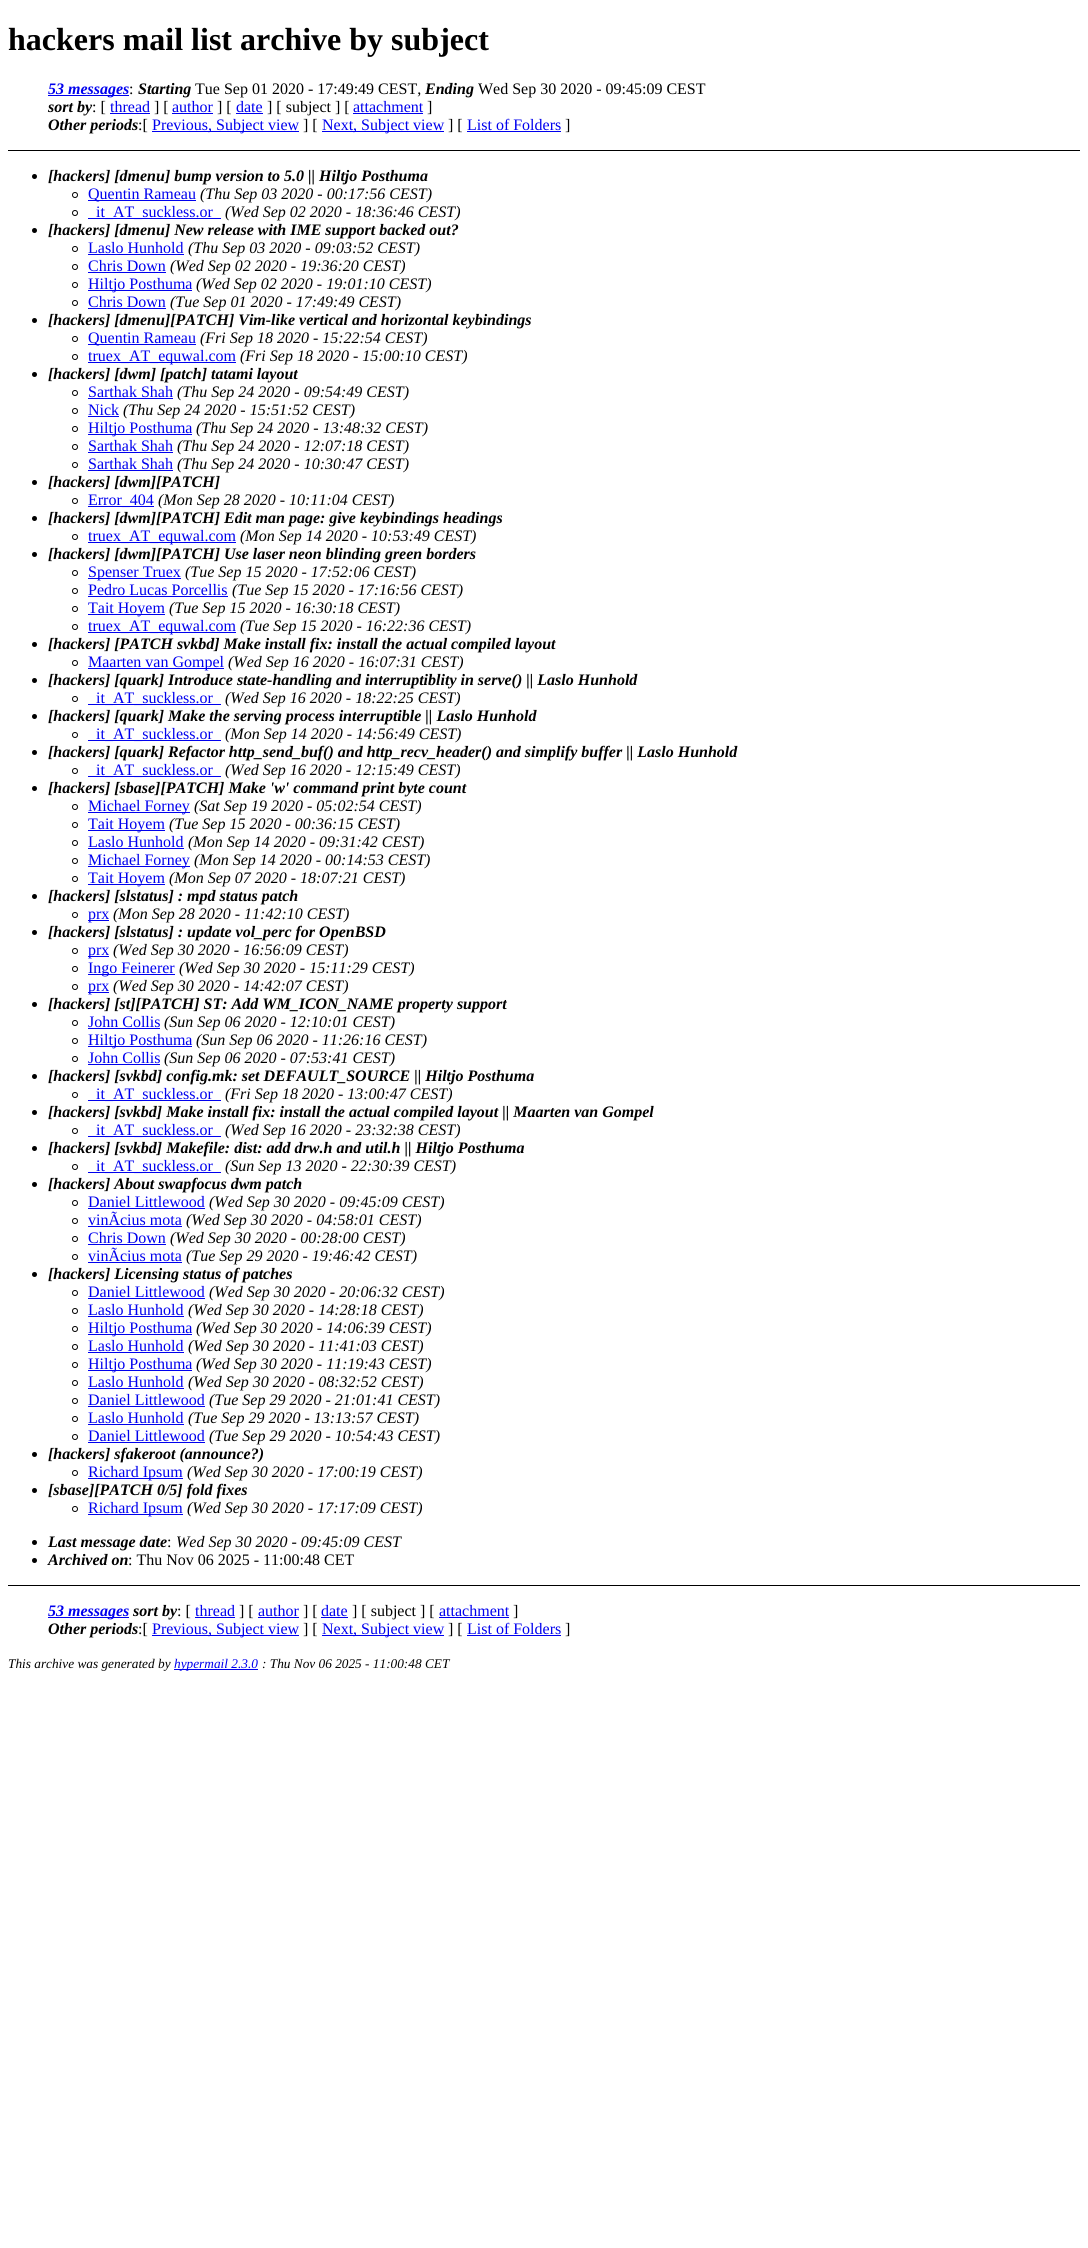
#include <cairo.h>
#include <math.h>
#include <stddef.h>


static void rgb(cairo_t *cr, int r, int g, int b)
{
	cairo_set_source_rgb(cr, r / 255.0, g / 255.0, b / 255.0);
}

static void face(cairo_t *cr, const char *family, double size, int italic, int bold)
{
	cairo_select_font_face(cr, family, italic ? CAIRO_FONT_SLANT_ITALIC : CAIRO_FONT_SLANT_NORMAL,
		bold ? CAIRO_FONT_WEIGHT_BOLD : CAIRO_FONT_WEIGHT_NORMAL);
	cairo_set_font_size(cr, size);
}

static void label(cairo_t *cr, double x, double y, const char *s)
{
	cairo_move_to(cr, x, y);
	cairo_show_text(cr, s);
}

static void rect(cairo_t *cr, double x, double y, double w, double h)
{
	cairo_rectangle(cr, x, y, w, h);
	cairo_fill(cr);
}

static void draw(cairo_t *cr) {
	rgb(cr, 255, 255, 255);
	cairo_paint(cr);
	rgb(cr, 0, 0, 0);
	rect(cr, 8, 150, 1072, 1);
	face(cr, "Liberation Serif", 32, 0, 1);
	label(cr, 8, 50, "hackers mail list archive by subject");
	rgb(cr, 0, 0, 238);
	rect(cr, 48, 95, 81, 1);
	face(cr, "Liberation Serif", 16, 1, 1);
	label(cr, 48, 94, "53 messages");
	face(cr, "Liberation Serif", 16, 0, 0);
	rgb(cr, 0, 0, 0);
	label(cr, 129, 94, ":");
	face(cr, "Liberation Serif", 16, 1, 1);
	label(cr, 138, 94, "Starting");
	face(cr, "Liberation Serif", 16, 0, 0);
	label(cr, 195, 94, "Tue Sep 01 2020 - 17:49:49 CEST,");
	face(cr, "Liberation Serif", 16, 1, 1);
	label(cr, 425, 94, "Ending");
	face(cr, "Liberation Serif", 16, 0, 0);
	label(cr, 478, 94, "Wed Sep 30 2020 - 09:45:09 CEST");
	face(cr, "Liberation Serif", 16, 1, 1);
	label(cr, 48, 112, "sort by");
	face(cr, "Liberation Serif", 16, 0, 0);
	label(cr, 92, 112, ": [");
	rgb(cr, 0, 0, 238);
	label(cr, 110, 112, "thread");
	rect(cr, 110, 113, 40, 1);
	rgb(cr, 0, 0, 0);
	label(cr, 154, 112, "] [");
	rgb(cr, 0, 0, 238);
	label(cr, 172, 112, "author");
	rect(cr, 172, 113, 41, 1);
	rgb(cr, 0, 0, 0);
	label(cr, 217, 112, "] [");
	rgb(cr, 0, 0, 238);
	label(cr, 236, 112, "date");
	rect(cr, 236, 113, 27, 1);
	rgb(cr, 0, 0, 0);
	label(cr, 267, 112, "] [ subject ] [");
	rgb(cr, 0, 0, 238);
	label(cr, 353, 112, "attachment");
	rect(cr, 353, 113, 70, 1);
	rgb(cr, 0, 0, 0);
	label(cr, 427, 112, "]");
	face(cr, "Liberation Serif", 16, 1, 1);
	label(cr, 48, 130, "Other periods");
	face(cr, "Liberation Serif", 16, 0, 0);
	label(cr, 138, 130, ":[");
	rgb(cr, 0, 0, 238);
	rect(cr, 152, 131, 147, 1);
	label(cr, 152, 130, "Previous, Subject view");
	rgb(cr, 0, 0, 0);
	label(cr, 303, 130, "] [");
	rgb(cr, 0, 0, 238);
	rect(cr, 322, 131, 122, 1);
	label(cr, 322, 130, "Next, Subject view");
	rgb(cr, 0, 0, 0);
	label(cr, 448, 130, "] [");
	rgb(cr, 0, 0, 238);
	label(cr, 467, 130, "List of Folders");
	rect(cr, 467, 131, 94, 1);
	rgb(cr, 0, 0, 0);
	label(cr, 565, 130, "]");
	cairo_new_path(cr);
	cairo_arc(cr, 34.5, 176.5, 2.5, 0, 2 * M_PI);
	cairo_fill(cr);
	face(cr, "Liberation Serif", 16, 1, 1);
	label(cr, 48, 181, "[hackers] [dmenu] bump version to 5.0 || Hiltjo Posthuma");
	cairo_new_path(cr);
	cairo_arc(cr, 75, 195, 2.5, 0, 2 * M_PI);
	cairo_set_line_width(cr, 1);
	cairo_stroke(cr);
	rgb(cr, 0, 0, 238);
	rect(cr, 88, 200, 108, 1);
	face(cr, "Liberation Serif", 16, 0, 0);
	label(cr, 88, 199, "Quentin Rameau");
	face(cr, "Liberation Serif", 16, 1, 0);
	rgb(cr, 0, 0, 0);
	label(cr, 200, 199, "(Thu Sep 03 2020 - 00:17:56 CEST)");
	cairo_new_path(cr);
	cairo_arc(cr, 75, 213, 2.5, 0, 2 * M_PI);
	cairo_stroke(cr);
	rgb(cr, 0, 0, 238);
	rect(cr, 88, 218, 133, 1);
	face(cr, "Liberation Serif", 16, 0, 0);
	label(cr, 96, 217, "it_AT_suckless.or");
	face(cr, "Liberation Serif", 16, 1, 0);
	rgb(cr, 0, 0, 0);
	label(cr, 225, 217, "(Wed Sep 02 2020 - 18:36:46 CEST)");
	cairo_new_path(cr);
	cairo_arc(cr, 34.5, 230.5, 2.5, 0, 2 * M_PI);
	cairo_fill(cr);
	face(cr, "Liberation Serif", 16, 1, 1);
	label(cr, 48, 235, "[hackers] [dmenu] New release with IME support backed out?");
	cairo_new_path(cr);
	cairo_arc(cr, 75, 249, 2.5, 0, 2 * M_PI);
	cairo_stroke(cr);
	face(cr, "Liberation Serif", 16, 0, 0);
	rgb(cr, 0, 0, 238);
	label(cr, 88, 253, "Laslo Hunhold");
	rect(cr, 88, 254, 96, 1);
	face(cr, "Liberation Serif", 16, 1, 0);
	rgb(cr, 0, 0, 0);
	label(cr, 188, 253, "(Thu Sep 03 2020 - 09:03:52 CEST)");
	cairo_new_path(cr);
	cairo_arc(cr, 75, 267, 2.5, 0, 2 * M_PI);
	cairo_stroke(cr);
	face(cr, "Liberation Serif", 16, 0, 0);
	rgb(cr, 0, 0, 238);
	label(cr, 88, 271, "Chris Down");
	rect(cr, 88, 272, 78, 1);
	face(cr, "Liberation Serif", 16, 1, 0);
	rgb(cr, 0, 0, 0);
	label(cr, 170, 271, "(Wed Sep 02 2020 - 19:36:20 CEST)");
	cairo_new_path(cr);
	cairo_arc(cr, 75, 285, 2.5, 0, 2 * M_PI);
	cairo_stroke(cr);
	rgb(cr, 0, 0, 238);
	rect(cr, 88, 290, 104, 1);
	face(cr, "Liberation Serif", 16, 0, 0);
	label(cr, 88, 289, "Hiltjo Posthuma");
	face(cr, "Liberation Serif", 16, 1, 0);
	rgb(cr, 0, 0, 0);
	label(cr, 196, 289, "(Wed Sep 02 2020 - 19:01:10 CEST)");
	cairo_new_path(cr);
	cairo_arc(cr, 75, 303, 2.5, 0, 2 * M_PI);
	cairo_stroke(cr);
	face(cr, "Liberation Serif", 16, 0, 0);
	rgb(cr, 0, 0, 238);
	label(cr, 88, 307, "Chris Down");
	rect(cr, 88, 308, 78, 1);
	face(cr, "Liberation Serif", 16, 1, 0);
	rgb(cr, 0, 0, 0);
	label(cr, 170, 307, "(Tue Sep 01 2020 - 17:49:49 CEST)");
	cairo_new_path(cr);
	cairo_arc(cr, 34.5, 320.5, 2.5, 0, 2 * M_PI);
	cairo_fill(cr);
	face(cr, "Liberation Serif", 16, 1, 1);
	label(cr, 48, 325, "[hackers] [dmenu][PATCH] Vim-like vertical and horizontal keybindings");
	cairo_new_path(cr);
	cairo_arc(cr, 75, 339, 2.5, 0, 2 * M_PI);
	cairo_stroke(cr);
	rgb(cr, 0, 0, 238);
	rect(cr, 88, 344, 108, 1);
	face(cr, "Liberation Serif", 16, 0, 0);
	label(cr, 88, 343, "Quentin Rameau");
	face(cr, "Liberation Serif", 16, 1, 0);
	rgb(cr, 0, 0, 0);
	label(cr, 200, 343, "(Fri Sep 18 2020 - 15:22:54 CEST)");
	cairo_new_path(cr);
	cairo_arc(cr, 75, 357, 2.5, 0, 2 * M_PI);
	cairo_stroke(cr);
	rgb(cr, 0, 0, 238);
	rect(cr, 88, 362, 148, 1);
	face(cr, "Liberation Serif", 16, 0, 0);
	label(cr, 88, 361, "truex_AT_equwal.com");
	face(cr, "Liberation Serif", 16, 1, 0);
	rgb(cr, 0, 0, 0);
	label(cr, 240, 361, "(Fri Sep 18 2020 - 15:00:10 CEST)");
	cairo_new_path(cr);
	cairo_arc(cr, 34.5, 374.5, 2.5, 0, 2 * M_PI);
	cairo_fill(cr);
	face(cr, "Liberation Serif", 16, 1, 1);
	label(cr, 48, 379, "[hackers] [dwm] [patch] tatami layout");
	cairo_new_path(cr);
	cairo_arc(cr, 75, 393, 2.5, 0, 2 * M_PI);
	cairo_stroke(cr);
	face(cr, "Liberation Serif", 16, 0, 0);
	rgb(cr, 0, 0, 238);
	label(cr, 88, 397, "Sarthak Shah");
	rect(cr, 88, 398, 85, 1);
	face(cr, "Liberation Serif", 16, 1, 0);
	rgb(cr, 0, 0, 0);
	label(cr, 177, 397, "(Thu Sep 24 2020 - 09:54:49 CEST)");
	cairo_new_path(cr);
	cairo_arc(cr, 75, 411, 2.5, 0, 2 * M_PI);
	cairo_stroke(cr);
	face(cr, "Liberation Serif", 16, 0, 0);
	rgb(cr, 0, 0, 238);
	label(cr, 88, 415, "Nick");
	rect(cr, 88, 416, 31, 1);
	face(cr, "Liberation Serif", 16, 1, 0);
	rgb(cr, 0, 0, 0);
	label(cr, 123, 415, "(Thu Sep 24 2020 - 15:51:52 CEST)");
	cairo_new_path(cr);
	cairo_arc(cr, 75, 429, 2.5, 0, 2 * M_PI);
	cairo_stroke(cr);
	rgb(cr, 0, 0, 238);
	rect(cr, 88, 434, 104, 1);
	face(cr, "Liberation Serif", 16, 0, 0);
	label(cr, 88, 433, "Hiltjo Posthuma");
	face(cr, "Liberation Serif", 16, 1, 0);
	rgb(cr, 0, 0, 0);
	label(cr, 196, 433, "(Thu Sep 24 2020 - 13:48:32 CEST)");
	cairo_new_path(cr);
	cairo_arc(cr, 75, 447, 2.5, 0, 2 * M_PI);
	cairo_stroke(cr);
	face(cr, "Liberation Serif", 16, 0, 0);
	rgb(cr, 0, 0, 238);
	label(cr, 88, 451, "Sarthak Shah");
	rect(cr, 88, 452, 85, 1);
	face(cr, "Liberation Serif", 16, 1, 0);
	rgb(cr, 0, 0, 0);
	label(cr, 177, 451, "(Thu Sep 24 2020 - 12:07:18 CEST)");
	cairo_new_path(cr);
	cairo_arc(cr, 75, 465, 2.5, 0, 2 * M_PI);
	cairo_stroke(cr);
	face(cr, "Liberation Serif", 16, 0, 0);
	rgb(cr, 0, 0, 238);
	label(cr, 88, 469, "Sarthak Shah");
	rect(cr, 88, 470, 85, 1);
	face(cr, "Liberation Serif", 16, 1, 0);
	rgb(cr, 0, 0, 0);
	label(cr, 177, 469, "(Thu Sep 24 2020 - 10:30:47 CEST)");
	cairo_new_path(cr);
	cairo_arc(cr, 34.5, 482.5, 2.5, 0, 2 * M_PI);
	cairo_fill(cr);
	face(cr, "Liberation Serif", 16, 1, 1);
	label(cr, 48, 487, "[hackers] [dwm][PATCH]");
	cairo_new_path(cr);
	cairo_arc(cr, 75, 501, 2.5, 0, 2 * M_PI);
	cairo_stroke(cr);
	rgb(cr, 0, 0, 238);
	rect(cr, 88, 506, 66, 1);
	face(cr, "Liberation Serif", 16, 0, 0);
	label(cr, 88, 505, "Error_404");
	face(cr, "Liberation Serif", 16, 1, 0);
	rgb(cr, 0, 0, 0);
	label(cr, 158, 505, "(Mon Sep 28 2020 - 10:11:04 CEST)");
	cairo_new_path(cr);
	cairo_arc(cr, 34.5, 518.5, 2.5, 0, 2 * M_PI);
	cairo_fill(cr);
	face(cr, "Liberation Serif", 16, 1, 1);
	label(cr, 48, 523, "[hackers] [dwm][PATCH] Edit man page: give keybindings headings");
	cairo_new_path(cr);
	cairo_arc(cr, 75, 537, 2.5, 0, 2 * M_PI);
	cairo_stroke(cr);
	rgb(cr, 0, 0, 238);
	rect(cr, 88, 542, 148, 1);
	face(cr, "Liberation Serif", 16, 0, 0);
	label(cr, 88, 541, "truex_AT_equwal.com");
	face(cr, "Liberation Serif", 16, 1, 0);
	rgb(cr, 0, 0, 0);
	label(cr, 240, 541, "(Mon Sep 14 2020 - 10:53:49 CEST)");
	cairo_new_path(cr);
	cairo_arc(cr, 34.5, 554.5, 2.5, 0, 2 * M_PI);
	cairo_fill(cr);
	face(cr, "Liberation Serif", 16, 1, 1);
	label(cr, 48, 559, "[hackers] [dwm][PATCH] Use laser neon blinding green borders");
	cairo_new_path(cr);
	cairo_arc(cr, 75, 573, 2.5, 0, 2 * M_PI);
	cairo_stroke(cr);
	rgb(cr, 0, 0, 238);
	rect(cr, 88, 578, 93, 1);
	face(cr, "Liberation Serif", 16, 0, 0);
	label(cr, 88, 577, "Spenser Truex");
	face(cr, "Liberation Serif", 16, 1, 0);
	rgb(cr, 0, 0, 0);
	label(cr, 185, 577, "(Tue Sep 15 2020 - 17:52:06 CEST)");
	cairo_new_path(cr);
	cairo_arc(cr, 75, 591, 2.5, 0, 2 * M_PI);
	cairo_stroke(cr);
	face(cr, "Liberation Serif", 16, 0, 0);
	rgb(cr, 0, 0, 238);
	label(cr, 88, 595, "Pedro Lucas Porcellis");
	rect(cr, 88, 596, 140, 1);
	face(cr, "Liberation Serif", 16, 1, 0);
	rgb(cr, 0, 0, 0);
	label(cr, 232, 595, "(Tue Sep 15 2020 - 17:16:56 CEST)");
	cairo_new_path(cr);
	cairo_arc(cr, 75, 609, 2.5, 0, 2 * M_PI);
	cairo_stroke(cr);
	rgb(cr, 0, 0, 238);
	rect(cr, 88, 614, 77, 1);
	face(cr, "Liberation Serif", 16, 0, 0);
	label(cr, 88, 613, "Tait Hoyem");
	face(cr, "Liberation Serif", 16, 1, 0);
	rgb(cr, 0, 0, 0);
	label(cr, 169, 613, "(Tue Sep 15 2020 - 16:30:18 CEST)");
	cairo_new_path(cr);
	cairo_arc(cr, 75, 627, 2.5, 0, 2 * M_PI);
	cairo_stroke(cr);
	rgb(cr, 0, 0, 238);
	rect(cr, 88, 632, 148, 1);
	face(cr, "Liberation Serif", 16, 0, 0);
	label(cr, 88, 631, "truex_AT_equwal.com");
	face(cr, "Liberation Serif", 16, 1, 0);
	rgb(cr, 0, 0, 0);
	label(cr, 240, 631, "(Tue Sep 15 2020 - 16:22:36 CEST)");
	cairo_new_path(cr);
	cairo_arc(cr, 34.5, 644.5, 2.5, 0, 2 * M_PI);
	cairo_fill(cr);
	face(cr, "Liberation Serif", 16, 1, 1);
	label(cr, 48, 649, "[hackers] [PATCH svkbd] Make install fix: install the actual compiled layout");
	cairo_new_path(cr);
	cairo_arc(cr, 75, 663, 2.5, 0, 2 * M_PI);
	cairo_stroke(cr);
	rgb(cr, 0, 0, 238);
	rect(cr, 88, 668, 136, 1);
	face(cr, "Liberation Serif", 16, 0, 0);
	label(cr, 88, 667, "Maarten van Gompel");
	face(cr, "Liberation Serif", 16, 1, 0);
	rgb(cr, 0, 0, 0);
	label(cr, 228, 667, "(Wed Sep 16 2020 - 16:07:31 CEST)");
	cairo_new_path(cr);
	cairo_arc(cr, 34.5, 680.5, 2.5, 0, 2 * M_PI);
	cairo_fill(cr);
	face(cr, "Liberation Serif", 16, 1, 1);
	label(cr, 48, 685, "[hackers] [quark] Introduce state-handling and interruptiblity in serve() || Laslo Hunhold");
	cairo_new_path(cr);
	cairo_arc(cr, 75, 699, 2.5, 0, 2 * M_PI);
	cairo_stroke(cr);
	rgb(cr, 0, 0, 238);
	rect(cr, 88, 704, 133, 1);
	face(cr, "Liberation Serif", 16, 0, 0);
	label(cr, 96, 703, "it_AT_suckless.or");
	face(cr, "Liberation Serif", 16, 1, 0);
	rgb(cr, 0, 0, 0);
	label(cr, 225, 703, "(Wed Sep 16 2020 - 18:22:25 CEST)");
	cairo_new_path(cr);
	cairo_arc(cr, 34.5, 716.5, 2.5, 0, 2 * M_PI);
	cairo_fill(cr);
	face(cr, "Liberation Serif", 16, 1, 1);
	label(cr, 48, 721, "[hackers] [quark] Make the serving process interruptible || Laslo Hunhold");
	cairo_new_path(cr);
	cairo_arc(cr, 75, 735, 2.5, 0, 2 * M_PI);
	cairo_stroke(cr);
	rgb(cr, 0, 0, 238);
	rect(cr, 88, 740, 133, 1);
	face(cr, "Liberation Serif", 16, 0, 0);
	label(cr, 96, 739, "it_AT_suckless.or");
	face(cr, "Liberation Serif", 16, 1, 0);
	rgb(cr, 0, 0, 0);
	label(cr, 225, 739, "(Mon Sep 14 2020 - 14:56:49 CEST)");
	cairo_new_path(cr);
	cairo_arc(cr, 34.5, 752.5, 2.5, 0, 2 * M_PI);
	cairo_fill(cr);
	face(cr, "Liberation Serif", 16, 1, 1);
	label(cr, 48, 757, "[hackers] [quark] Refactor http_send_buf() and http_recv_header() and simplify buffer || Laslo Hunhold");
	cairo_new_path(cr);
	cairo_arc(cr, 75, 771, 2.5, 0, 2 * M_PI);
	cairo_stroke(cr);
	rgb(cr, 0, 0, 238);
	rect(cr, 88, 776, 133, 1);
	face(cr, "Liberation Serif", 16, 0, 0);
	label(cr, 96, 775, "it_AT_suckless.or");
	face(cr, "Liberation Serif", 16, 1, 0);
	rgb(cr, 0, 0, 0);
	label(cr, 225, 775, "(Wed Sep 16 2020 - 12:15:49 CEST)");
	cairo_new_path(cr);
	cairo_arc(cr, 34.5, 788.5, 2.5, 0, 2 * M_PI);
	cairo_fill(cr);
	face(cr, "Liberation Serif", 16, 1, 1);
	label(cr, 48, 793, "[hackers] [sbase][PATCH] Make 'w' command print byte count");
	cairo_new_path(cr);
	cairo_arc(cr, 75, 807, 2.5, 0, 2 * M_PI);
	cairo_stroke(cr);
	rgb(cr, 0, 0, 238);
	rect(cr, 88, 812, 102, 1);
	face(cr, "Liberation Serif", 16, 0, 0);
	label(cr, 88, 811, "Michael Forney");
	face(cr, "Liberation Serif", 16, 1, 0);
	rgb(cr, 0, 0, 0);
	label(cr, 194, 811, "(Sat Sep 19 2020 - 05:02:54 CEST)");
	cairo_new_path(cr);
	cairo_arc(cr, 75, 825, 2.5, 0, 2 * M_PI);
	cairo_stroke(cr);
	rgb(cr, 0, 0, 238);
	rect(cr, 88, 830, 77, 1);
	face(cr, "Liberation Serif", 16, 0, 0);
	label(cr, 88, 829, "Tait Hoyem");
	face(cr, "Liberation Serif", 16, 1, 0);
	rgb(cr, 0, 0, 0);
	label(cr, 169, 829, "(Tue Sep 15 2020 - 00:36:15 CEST)");
	cairo_new_path(cr);
	cairo_arc(cr, 75, 843, 2.5, 0, 2 * M_PI);
	cairo_stroke(cr);
	face(cr, "Liberation Serif", 16, 0, 0);
	rgb(cr, 0, 0, 238);
	label(cr, 88, 847, "Laslo Hunhold");
	rect(cr, 88, 848, 96, 1);
	face(cr, "Liberation Serif", 16, 1, 0);
	rgb(cr, 0, 0, 0);
	label(cr, 188, 847, "(Mon Sep 14 2020 - 09:31:42 CEST)");
	cairo_new_path(cr);
	cairo_arc(cr, 75, 861, 2.5, 0, 2 * M_PI);
	cairo_stroke(cr);
	rgb(cr, 0, 0, 238);
	rect(cr, 88, 866, 102, 1);
	face(cr, "Liberation Serif", 16, 0, 0);
	label(cr, 88, 865, "Michael Forney");
	face(cr, "Liberation Serif", 16, 1, 0);
	rgb(cr, 0, 0, 0);
	label(cr, 194, 865, "(Mon Sep 14 2020 - 00:14:53 CEST)");
	cairo_new_path(cr);
	cairo_arc(cr, 75, 879, 2.5, 0, 2 * M_PI);
	cairo_stroke(cr);
	rgb(cr, 0, 0, 238);
	rect(cr, 88, 884, 77, 1);
	face(cr, "Liberation Serif", 16, 0, 0);
	label(cr, 88, 883, "Tait Hoyem");
	face(cr, "Liberation Serif", 16, 1, 0);
	rgb(cr, 0, 0, 0);
	label(cr, 169, 883, "(Mon Sep 07 2020 - 18:07:21 CEST)");
	cairo_new_path(cr);
	cairo_arc(cr, 34.5, 896.5, 2.5, 0, 2 * M_PI);
	cairo_fill(cr);
	face(cr, "Liberation Serif", 16, 1, 1);
	label(cr, 48, 901, "[hackers] [slstatus] : mpd status patch");
	cairo_new_path(cr);
	cairo_arc(cr, 75, 915, 2.5, 0, 2 * M_PI);
	cairo_stroke(cr);
	rgb(cr, 0, 0, 238);
	rect(cr, 88, 920, 21, 1);
	face(cr, "Liberation Serif", 16, 0, 0);
	label(cr, 88, 919, "prx");
	face(cr, "Liberation Serif", 16, 1, 0);
	rgb(cr, 0, 0, 0);
	label(cr, 113, 919, "(Mon Sep 28 2020 - 11:42:10 CEST)");
	cairo_new_path(cr);
	cairo_arc(cr, 34.5, 932.5, 2.5, 0, 2 * M_PI);
	cairo_fill(cr);
	face(cr, "Liberation Serif", 16, 1, 1);
	label(cr, 48, 937, "[hackers] [slstatus] : update vol_perc for OpenBSD");
	cairo_new_path(cr);
	cairo_arc(cr, 75, 951, 2.5, 0, 2 * M_PI);
	cairo_stroke(cr);
	rgb(cr, 0, 0, 238);
	rect(cr, 88, 956, 21, 1);
	face(cr, "Liberation Serif", 16, 0, 0);
	label(cr, 88, 955, "prx");
	face(cr, "Liberation Serif", 16, 1, 0);
	rgb(cr, 0, 0, 0);
	label(cr, 113, 955, "(Wed Sep 30 2020 - 16:56:09 CEST)");
	cairo_new_path(cr);
	cairo_arc(cr, 75, 969, 2.5, 0, 2 * M_PI);
	cairo_stroke(cr);
	rgb(cr, 0, 0, 238);
	rect(cr, 88, 974, 87, 1);
	face(cr, "Liberation Serif", 16, 0, 0);
	label(cr, 88, 973, "Ingo Feinerer");
	face(cr, "Liberation Serif", 16, 1, 0);
	rgb(cr, 0, 0, 0);
	label(cr, 179, 973, "(Wed Sep 30 2020 - 15:11:29 CEST)");
	cairo_new_path(cr);
	cairo_arc(cr, 75, 987, 2.5, 0, 2 * M_PI);
	cairo_stroke(cr);
	rgb(cr, 0, 0, 238);
	rect(cr, 88, 992, 21, 1);
	face(cr, "Liberation Serif", 16, 0, 0);
	label(cr, 88, 991, "prx");
	face(cr, "Liberation Serif", 16, 1, 0);
	rgb(cr, 0, 0, 0);
	label(cr, 113, 991, "(Wed Sep 30 2020 - 14:42:07 CEST)");
	cairo_new_path(cr);
	cairo_arc(cr, 34.5, 1004.5, 2.5, 0, 2 * M_PI);
	cairo_fill(cr);
	face(cr, "Liberation Serif", 16, 1, 1);
	label(cr, 48, 1009, "[hackers] [st][PATCH] ST: Add WM_ICON_NAME property support");
	cairo_new_path(cr);
	cairo_arc(cr, 75, 1023, 2.5, 0, 2 * M_PI);
	cairo_stroke(cr);
	face(cr, "Liberation Serif", 16, 0, 0);
	rgb(cr, 0, 0, 238);
	label(cr, 88, 1027, "John Collis");
	rect(cr, 88, 1028, 72, 1);
	face(cr, "Liberation Serif", 16, 1, 0);
	rgb(cr, 0, 0, 0);
	label(cr, 164, 1027, "(Sun Sep 06 2020 - 12:10:01 CEST)");
	cairo_new_path(cr);
	cairo_arc(cr, 75, 1041, 2.5, 0, 2 * M_PI);
	cairo_stroke(cr);
	rgb(cr, 0, 0, 238);
	rect(cr, 88, 1046, 104, 1);
	face(cr, "Liberation Serif", 16, 0, 0);
	label(cr, 88, 1045, "Hiltjo Posthuma");
	face(cr, "Liberation Serif", 16, 1, 0);
	rgb(cr, 0, 0, 0);
	label(cr, 196, 1045, "(Sun Sep 06 2020 - 11:26:16 CEST)");
	cairo_new_path(cr);
	cairo_arc(cr, 75, 1059, 2.5, 0, 2 * M_PI);
	cairo_stroke(cr);
	face(cr, "Liberation Serif", 16, 0, 0);
	rgb(cr, 0, 0, 238);
	label(cr, 88, 1063, "John Collis");
	rect(cr, 88, 1064, 72, 1);
	face(cr, "Liberation Serif", 16, 1, 0);
	rgb(cr, 0, 0, 0);
	label(cr, 164, 1063, "(Sun Sep 06 2020 - 07:53:41 CEST)");
	cairo_new_path(cr);
	cairo_arc(cr, 34.5, 1076.5, 2.5, 0, 2 * M_PI);
	cairo_fill(cr);
	face(cr, "Liberation Serif", 16, 1, 1);
	label(cr, 48, 1081, "[hackers] [svkbd] config.mk: set DEFAULT_SOURCE || Hiltjo Posthuma");
	cairo_new_path(cr);
	cairo_arc(cr, 75, 1095, 2.5, 0, 2 * M_PI);
	cairo_stroke(cr);
	rgb(cr, 0, 0, 238);
	rect(cr, 88, 1100, 133, 1);
	face(cr, "Liberation Serif", 16, 0, 0);
	label(cr, 96, 1099, "it_AT_suckless.or");
	face(cr, "Liberation Serif", 16, 1, 0);
	rgb(cr, 0, 0, 0);
	label(cr, 225, 1099, "(Fri Sep 18 2020 - 13:00:47 CEST)");
	cairo_new_path(cr);
	cairo_arc(cr, 34.5, 1112.5, 2.5, 0, 2 * M_PI);
	cairo_fill(cr);
	face(cr, "Liberation Serif", 16, 1, 1);
	label(cr, 48, 1117, "[hackers] [svkbd] Make install fix: install the actual compiled layout || Maarten van Gompel");
	cairo_new_path(cr);
	cairo_arc(cr, 75, 1131, 2.5, 0, 2 * M_PI);
	cairo_stroke(cr);
	rgb(cr, 0, 0, 238);
	rect(cr, 88, 1136, 133, 1);
	face(cr, "Liberation Serif", 16, 0, 0);
	label(cr, 96, 1135, "it_AT_suckless.or");
	face(cr, "Liberation Serif", 16, 1, 0);
	rgb(cr, 0, 0, 0);
	label(cr, 225, 1135, "(Wed Sep 16 2020 - 23:32:38 CEST)");
	cairo_new_path(cr);
	cairo_arc(cr, 34.5, 1148.5, 2.5, 0, 2 * M_PI);
	cairo_fill(cr);
	face(cr, "Liberation Serif", 16, 1, 1);
	label(cr, 48, 1153, "[hackers] [svkbd] Makefile: dist: add drw.h and util.h || Hiltjo Posthuma");
	cairo_new_path(cr);
	cairo_arc(cr, 75, 1167, 2.5, 0, 2 * M_PI);
	cairo_stroke(cr);
	rgb(cr, 0, 0, 238);
	rect(cr, 88, 1172, 133, 1);
	face(cr, "Liberation Serif", 16, 0, 0);
	label(cr, 96, 1171, "it_AT_suckless.or");
	face(cr, "Liberation Serif", 16, 1, 0);
	rgb(cr, 0, 0, 0);
	label(cr, 225, 1171, "(Sun Sep 13 2020 - 22:30:39 CEST)");
	cairo_new_path(cr);
	cairo_arc(cr, 34.5, 1184.5, 2.5, 0, 2 * M_PI);
	cairo_fill(cr);
	face(cr, "Liberation Serif", 16, 1, 1);
	label(cr, 48, 1189, "[hackers] About swapfocus dwm patch");
	cairo_new_path(cr);
	cairo_arc(cr, 75, 1203, 2.5, 0, 2 * M_PI);
	cairo_stroke(cr);
	face(cr, "Liberation Serif", 16, 0, 0);
	rgb(cr, 0, 0, 238);
	label(cr, 88, 1207, "Daniel Littlewood");
	rect(cr, 88, 1208, 117, 1);
	face(cr, "Liberation Serif", 16, 1, 0);
	rgb(cr, 0, 0, 0);
	label(cr, 209, 1207, "(Wed Sep 30 2020 - 09:45:09 CEST)");
	cairo_new_path(cr);
	cairo_arc(cr, 75, 1221, 2.5, 0, 2 * M_PI);
	cairo_stroke(cr);
	face(cr, "Liberation Serif", 16, 0, 0);
	rgb(cr, 0, 0, 238);
	label(cr, 88, 1225, "vinÃcius mota");
	rect(cr, 88, 1226, 94, 1);
	face(cr, "Liberation Serif", 16, 1, 0);
	rgb(cr, 0, 0, 0);
	label(cr, 186, 1225, "(Wed Sep 30 2020 - 04:58:01 CEST)");
	cairo_new_path(cr);
	cairo_arc(cr, 75, 1239, 2.5, 0, 2 * M_PI);
	cairo_stroke(cr);
	face(cr, "Liberation Serif", 16, 0, 0);
	rgb(cr, 0, 0, 238);
	label(cr, 88, 1243, "Chris Down");
	rect(cr, 88, 1244, 78, 1);
	face(cr, "Liberation Serif", 16, 1, 0);
	rgb(cr, 0, 0, 0);
	label(cr, 170, 1243, "(Wed Sep 30 2020 - 00:28:00 CEST)");
	cairo_new_path(cr);
	cairo_arc(cr, 75, 1257, 2.5, 0, 2 * M_PI);
	cairo_stroke(cr);
	face(cr, "Liberation Serif", 16, 0, 0);
	rgb(cr, 0, 0, 238);
	label(cr, 88, 1261, "vinÃcius mota");
	rect(cr, 88, 1262, 94, 1);
	face(cr, "Liberation Serif", 16, 1, 0);
	rgb(cr, 0, 0, 0);
	label(cr, 186, 1261, "(Tue Sep 29 2020 - 19:46:42 CEST)");
	cairo_new_path(cr);
	cairo_arc(cr, 34.5, 1274.5, 2.5, 0, 2 * M_PI);
	cairo_fill(cr);
	face(cr, "Liberation Serif", 16, 1, 1);
	label(cr, 48, 1279, "[hackers] Licensing status of patches");
	cairo_new_path(cr);
	cairo_arc(cr, 75, 1293, 2.5, 0, 2 * M_PI);
	cairo_stroke(cr);
	face(cr, "Liberation Serif", 16, 0, 0);
	rgb(cr, 0, 0, 238);
	label(cr, 88, 1297, "Daniel Littlewood");
	rect(cr, 88, 1298, 117, 1);
	face(cr, "Liberation Serif", 16, 1, 0);
	rgb(cr, 0, 0, 0);
	label(cr, 209, 1297, "(Wed Sep 30 2020 - 20:06:32 CEST)");
	cairo_new_path(cr);
	cairo_arc(cr, 75, 1311, 2.5, 0, 2 * M_PI);
	cairo_stroke(cr);
	face(cr, "Liberation Serif", 16, 0, 0);
	rgb(cr, 0, 0, 238);
	label(cr, 88, 1315, "Laslo Hunhold");
	rect(cr, 88, 1316, 96, 1);
	face(cr, "Liberation Serif", 16, 1, 0);
	rgb(cr, 0, 0, 0);
	label(cr, 188, 1315, "(Wed Sep 30 2020 - 14:28:18 CEST)");
	cairo_new_path(cr);
	cairo_arc(cr, 75, 1329, 2.5, 0, 2 * M_PI);
	cairo_stroke(cr);
	rgb(cr, 0, 0, 238);
	rect(cr, 88, 1334, 104, 1);
	face(cr, "Liberation Serif", 16, 0, 0);
	label(cr, 88, 1333, "Hiltjo Posthuma");
	face(cr, "Liberation Serif", 16, 1, 0);
	rgb(cr, 0, 0, 0);
	label(cr, 196, 1333, "(Wed Sep 30 2020 - 14:06:39 CEST)");
	cairo_new_path(cr);
	cairo_arc(cr, 75, 1347, 2.5, 0, 2 * M_PI);
	cairo_stroke(cr);
	face(cr, "Liberation Serif", 16, 0, 0);
	rgb(cr, 0, 0, 238);
	label(cr, 88, 1351, "Laslo Hunhold");
	rect(cr, 88, 1352, 96, 1);
	face(cr, "Liberation Serif", 16, 1, 0);
	rgb(cr, 0, 0, 0);
	label(cr, 188, 1351, "(Wed Sep 30 2020 - 11:41:03 CEST)");
	cairo_new_path(cr);
	cairo_arc(cr, 75, 1365, 2.5, 0, 2 * M_PI);
	cairo_stroke(cr);
	rgb(cr, 0, 0, 238);
	rect(cr, 88, 1370, 104, 1);
	face(cr, "Liberation Serif", 16, 0, 0);
	label(cr, 88, 1369, "Hiltjo Posthuma");
	face(cr, "Liberation Serif", 16, 1, 0);
	rgb(cr, 0, 0, 0);
	label(cr, 196, 1369, "(Wed Sep 30 2020 - 11:19:43 CEST)");
	cairo_new_path(cr);
	cairo_arc(cr, 75, 1383, 2.5, 0, 2 * M_PI);
	cairo_stroke(cr);
	face(cr, "Liberation Serif", 16, 0, 0);
	rgb(cr, 0, 0, 238);
	label(cr, 88, 1387, "Laslo Hunhold");
	rect(cr, 88, 1388, 96, 1);
	face(cr, "Liberation Serif", 16, 1, 0);
	rgb(cr, 0, 0, 0);
	label(cr, 188, 1387, "(Wed Sep 30 2020 - 08:32:52 CEST)");
	cairo_new_path(cr);
	cairo_arc(cr, 75, 1401, 2.5, 0, 2 * M_PI);
	cairo_stroke(cr);
	face(cr, "Liberation Serif", 16, 0, 0);
	rgb(cr, 0, 0, 238);
	label(cr, 88, 1405, "Daniel Littlewood");
	rect(cr, 88, 1406, 117, 1);
	face(cr, "Liberation Serif", 16, 1, 0);
	rgb(cr, 0, 0, 0);
	label(cr, 209, 1405, "(Tue Sep 29 2020 - 21:01:41 CEST)");
	cairo_new_path(cr);
	cairo_arc(cr, 75, 1419, 2.5, 0, 2 * M_PI);
	cairo_stroke(cr);
	face(cr, "Liberation Serif", 16, 0, 0);
	rgb(cr, 0, 0, 238);
	label(cr, 88, 1423, "Laslo Hunhold");
	rect(cr, 88, 1424, 96, 1);
	face(cr, "Liberation Serif", 16, 1, 0);
	rgb(cr, 0, 0, 0);
	label(cr, 188, 1423, "(Tue Sep 29 2020 - 13:13:57 CEST)");
	cairo_new_path(cr);
	cairo_arc(cr, 75, 1437, 2.5, 0, 2 * M_PI);
	cairo_stroke(cr);
	face(cr, "Liberation Serif", 16, 0, 0);
	rgb(cr, 0, 0, 238);
	label(cr, 88, 1441, "Daniel Littlewood");
	rect(cr, 88, 1442, 117, 1);
	face(cr, "Liberation Serif", 16, 1, 0);
	rgb(cr, 0, 0, 0);
	label(cr, 209, 1441, "(Tue Sep 29 2020 - 10:54:43 CEST)");
	cairo_new_path(cr);
	cairo_arc(cr, 34.5, 1454.5, 2.5, 0, 2 * M_PI);
	cairo_fill(cr);
	face(cr, "Liberation Serif", 16, 1, 1);
	label(cr, 48, 1459, "[hackers] sfakeroot (announce?)");
	cairo_new_path(cr);
	cairo_arc(cr, 75, 1473, 2.5, 0, 2 * M_PI);
	cairo_stroke(cr);
	rgb(cr, 0, 0, 238);
	rect(cr, 88, 1478, 95, 1);
	face(cr, "Liberation Serif", 16, 0, 0);
	label(cr, 88, 1477, "Richard Ipsum");
	face(cr, "Liberation Serif", 16, 1, 0);
	rgb(cr, 0, 0, 0);
	label(cr, 187, 1477, "(Wed Sep 30 2020 - 17:00:19 CEST)");
	cairo_new_path(cr);
	cairo_arc(cr, 34.5, 1490.5, 2.5, 0, 2 * M_PI);
	cairo_fill(cr);
	face(cr, "Liberation Serif", 16, 1, 1);
	label(cr, 48, 1495, "[sbase][PATCH 0/5] fold fixes");
	cairo_new_path(cr);
	cairo_arc(cr, 75, 1509, 2.5, 0, 2 * M_PI);
	cairo_stroke(cr);
	rgb(cr, 0, 0, 238);
	rect(cr, 88, 1514, 95, 1);
	face(cr, "Liberation Serif", 16, 0, 0);
	label(cr, 88, 1513, "Richard Ipsum");
	face(cr, "Liberation Serif", 16, 1, 0);
	rgb(cr, 0, 0, 0);
	label(cr, 187, 1513, "(Wed Sep 30 2020 - 17:17:09 CEST)");
	cairo_new_path(cr);
	cairo_arc(cr, 34.5, 1542.5, 2.5, 0, 2 * M_PI);
	cairo_fill(cr);
	face(cr, "Liberation Serif", 16, 1, 1);
	label(cr, 48, 1547, "Last message date");
	face(cr, "Liberation Serif", 16, 0, 0);
	label(cr, 167, 1547, ":");
	face(cr, "Liberation Serif", 16, 1, 0);
	label(cr, 176, 1547, "Wed Sep 30 2020 - 09:45:09 CEST");
	cairo_new_path(cr);
	cairo_arc(cr, 34.5, 1560.5, 2.5, 0, 2 * M_PI);
	cairo_fill(cr);
	face(cr, "Liberation Serif", 16, 1, 1);
	label(cr, 48, 1565, "Archived on");
	face(cr, "Liberation Serif", 16, 0, 0);
	label(cr, 128, 1565, ": Thu Nov 06 2025 - 11:00:48 CET");
	rect(cr, 8, 1585, 1072, 1);
	rgb(cr, 0, 0, 238);
	rect(cr, 48, 1617, 81, 1);
	face(cr, "Liberation Serif", 16, 1, 1);
	label(cr, 48, 1616, "53 messages");
	rgb(cr, 0, 0, 0);
	label(cr, 133, 1616, "sort by");
	face(cr, "Liberation Serif", 16, 0, 0);
	label(cr, 177, 1616, ": [");
	rgb(cr, 0, 0, 238);
	label(cr, 195, 1616, "thread");
	rect(cr, 195, 1617, 40, 1);
	rgb(cr, 0, 0, 0);
	label(cr, 239, 1616, "] [");
	rgb(cr, 0, 0, 238);
	label(cr, 258, 1616, "author");
	rect(cr, 258, 1617, 41, 1);
	rgb(cr, 0, 0, 0);
	label(cr, 303, 1616, "] [");
	rgb(cr, 0, 0, 238);
	label(cr, 321, 1616, "date");
	rect(cr, 321, 1617, 27, 1);
	rgb(cr, 0, 0, 0);
	label(cr, 352, 1616, "] [ subject ] [");
	rgb(cr, 0, 0, 238);
	label(cr, 439, 1616, "attachment");
	rect(cr, 439, 1617, 70, 1);
	rgb(cr, 0, 0, 0);
	label(cr, 513, 1616, "]");
	face(cr, "Liberation Serif", 16, 1, 1);
	label(cr, 48, 1634, "Other periods");
	face(cr, "Liberation Serif", 16, 0, 0);
	label(cr, 138, 1634, ":[");
	rgb(cr, 0, 0, 238);
	rect(cr, 152, 1635, 147, 1);
	label(cr, 152, 1634, "Previous, Subject view");
	rgb(cr, 0, 0, 0);
	label(cr, 303, 1634, "] [");
	rgb(cr, 0, 0, 238);
	rect(cr, 322, 1635, 122, 1);
	label(cr, 322, 1634, "Next, Subject view");
	rgb(cr, 0, 0, 0);
	label(cr, 448, 1634, "] [");
	rgb(cr, 0, 0, 238);
	label(cr, 467, 1634, "List of Folders");
	rect(cr, 467, 1635, 94, 1);
	rgb(cr, 0, 0, 0);
	label(cr, 565, 1634, "]");
	face(cr, "Liberation Serif", 13.3, 1, 0);
	label(cr, 8, 1668, "This archive was generated by");
	rgb(cr, 0, 0, 238);
	rect(cr, 174, 1669, 84, 1);
	label(cr, 174, 1668, "hypermail 2.3.0");
	rgb(cr, 0, 0, 0);
	label(cr, 262, 1668, ": Thu Nov 06 2025 - 11:00:48 CET");
}

int main(void) {
	cairo_surface_t *surface = cairo_image_surface_create(CAIRO_FORMAT_RGB24, 1088, 2248);
	cairo_t *cr = cairo_create(surface);
	cairo_font_options_t *options = cairo_font_options_create();
	cairo_font_options_set_hint_metrics(options, CAIRO_HINT_METRICS_OFF);
	cairo_font_options_set_hint_style(options, CAIRO_HINT_STYLE_NONE);
	cairo_set_font_options(cr, options);
	cairo_set_miter_limit(cr, 4);
	draw(cr);
	cairo_surface_write_to_png(surface, "render.png");
	cairo_font_options_destroy(options);
	cairo_destroy(cr);
	cairo_surface_destroy(surface);
	return 0;
}
